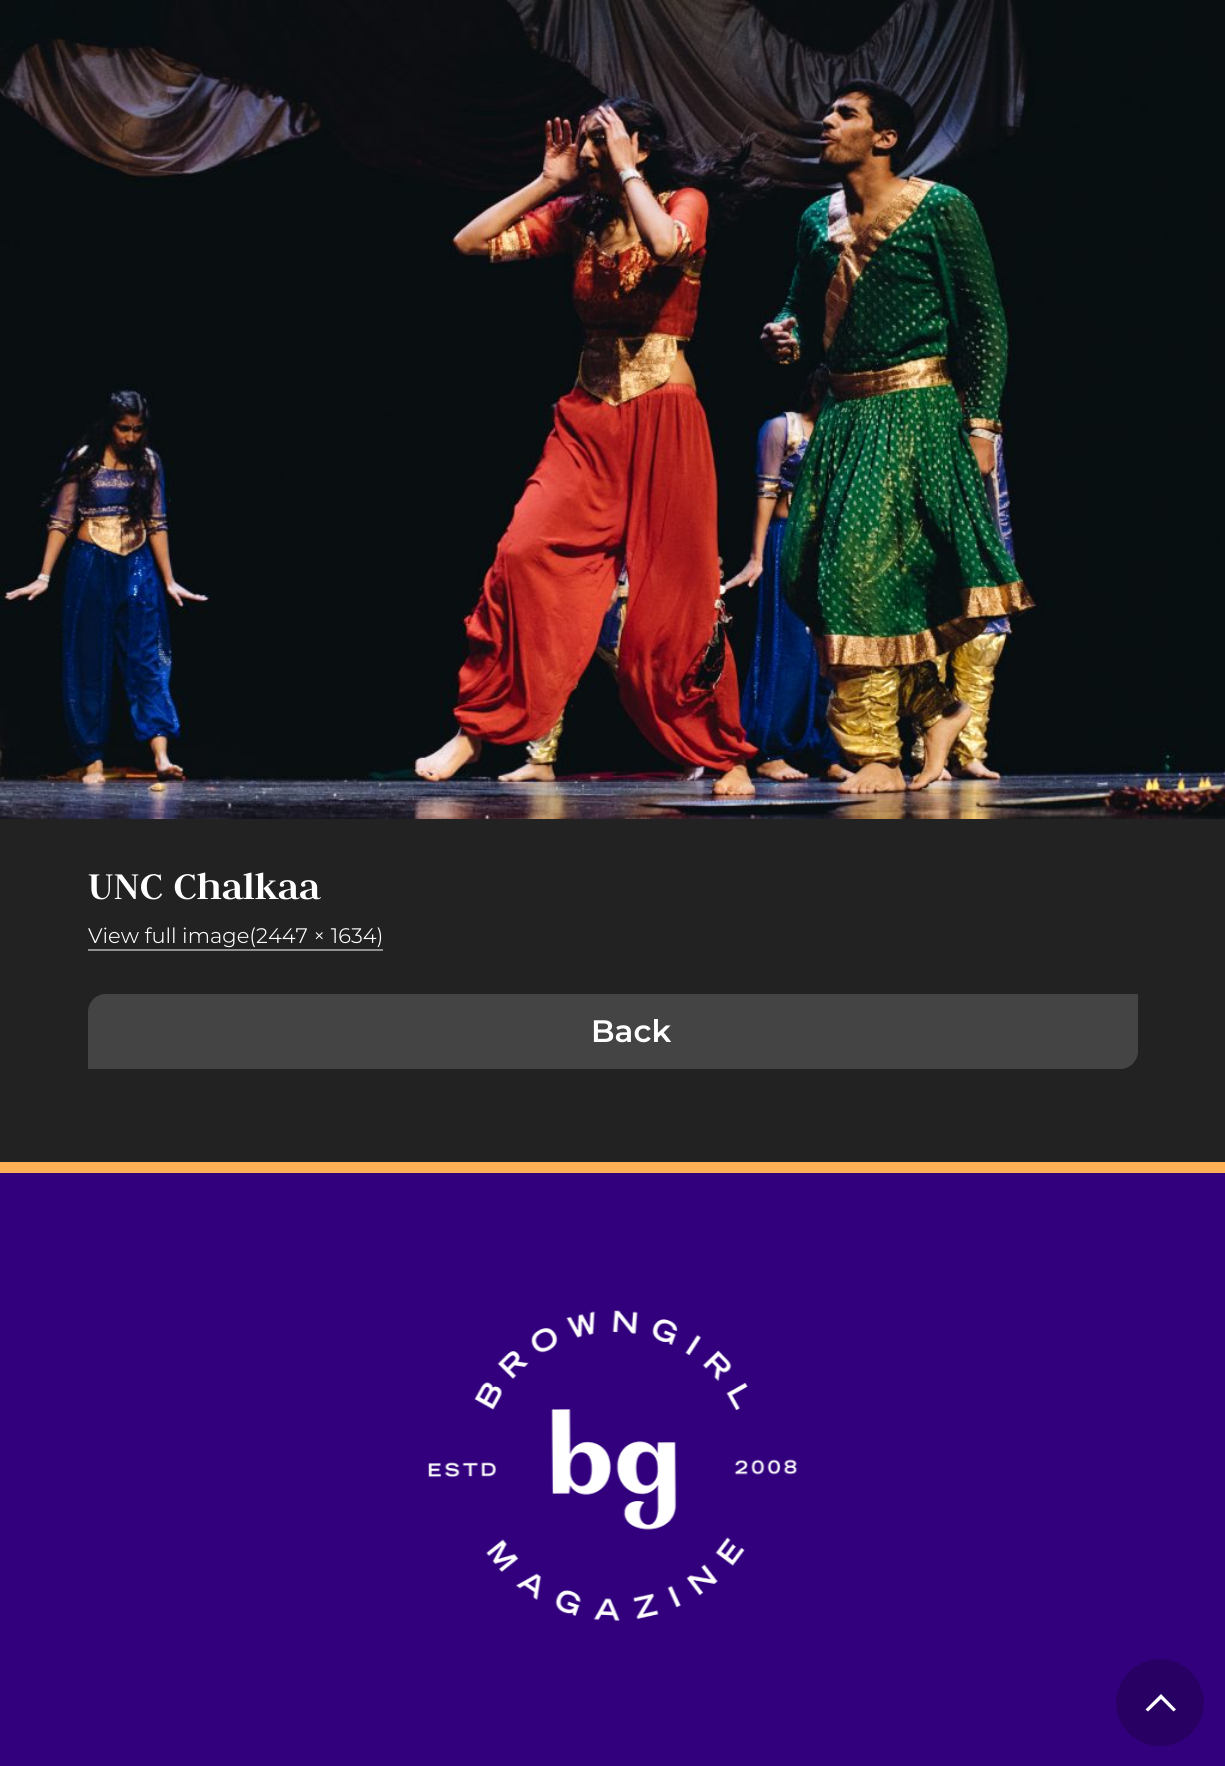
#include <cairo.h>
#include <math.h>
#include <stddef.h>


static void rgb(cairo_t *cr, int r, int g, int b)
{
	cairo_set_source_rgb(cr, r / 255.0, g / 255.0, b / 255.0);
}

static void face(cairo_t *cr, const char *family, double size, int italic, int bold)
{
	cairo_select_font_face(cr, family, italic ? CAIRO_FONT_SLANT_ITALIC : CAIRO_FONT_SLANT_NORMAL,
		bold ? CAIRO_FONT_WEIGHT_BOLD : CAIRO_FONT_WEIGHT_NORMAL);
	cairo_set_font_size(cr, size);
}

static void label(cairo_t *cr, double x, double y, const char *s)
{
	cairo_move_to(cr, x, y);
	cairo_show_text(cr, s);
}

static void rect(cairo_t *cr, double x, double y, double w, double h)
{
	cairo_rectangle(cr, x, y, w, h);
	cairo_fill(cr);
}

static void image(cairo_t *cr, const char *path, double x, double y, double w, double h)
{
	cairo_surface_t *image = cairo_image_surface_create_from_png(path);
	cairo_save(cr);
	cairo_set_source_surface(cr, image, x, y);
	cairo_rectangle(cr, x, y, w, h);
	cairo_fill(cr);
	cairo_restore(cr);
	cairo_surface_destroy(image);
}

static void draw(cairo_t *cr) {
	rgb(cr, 34, 34, 34);
	cairo_paint(cr);
	image(cr, "image0.png", 0, 0, 1225, 819);
	face(cr, "Judson", 42, 0, 1);
	rgb(cr, 255, 255, 255);
	label(cr, 88, 899, "UNC Chalkaa");
	face(cr, "Montserrat Light", 21, 0, 0);
	label(cr, 88, 943, "View full image(2447 × 1634)");
	rgb(cr, 145, 145, 145);
	rect(cr, 88, 949, 295, 2);
	rgb(cr, 68, 68, 68);
	cairo_new_path(cr);
	cairo_move_to(cr, 106, 994);
	cairo_line_to(cr, 1138, 994);
	cairo_line_to(cr, 1138, 1051);
	cairo_curve_to(cr, 1138, 1061, 1130, 1069, 1120, 1069);
	cairo_line_to(cr, 88, 1069);
	cairo_line_to(cr, 88, 1012);
	cairo_curve_to(cr, 88, 1002, 96, 994, 106, 994);
	cairo_close_path(cr);
	cairo_fill(cr);
	face(cr, "Montserrat SemiBold", 31, 0, 0);
	rgb(cr, 255, 255, 255);
	label(cr, 591, 1042, "Back");
	rgb(cr, 50, 0, 125);
	rect(cr, 0, 1173, 1225, 593);
	rgb(cr, 255, 175, 85);
	rect(cr, 0, 1162, 1225, 11);
	image(cr, "image1.png", 428, 1310, 369, 311);
	rgb(cr, 40, 0, 100);
	cairo_new_path(cr);
	cairo_move_to(cr, 1204, 1703);
	cairo_curve_to(cr, 1204, 1727, 1184, 1746, 1160, 1746);
	cairo_curve_to(cr, 1136, 1746, 1116, 1727, 1116, 1703);
	cairo_curve_to(cr, 1116, 1679, 1136, 1659, 1160, 1659);
	cairo_curve_to(cr, 1184, 1659, 1204, 1679, 1204, 1703);
	cairo_close_path(cr);
	cairo_fill(cr);
	rgb(cr, 255, 255, 255);
	cairo_new_path(cr);
	cairo_move_to(cr, 1176, 1709.5);
	cairo_line_to(cr, 1173.5, 1711.5);
	cairo_line_to(cr, 1161, 1699);
	cairo_line_to(cr, 1148, 1711.5);
	cairo_line_to(cr, 1145.5, 1709.5);
	cairo_line_to(cr, 1161, 1694);
	cairo_close_path(cr);
	cairo_fill(cr);
}

int main(void) {
	cairo_surface_t *surface = cairo_image_surface_create(CAIRO_FORMAT_RGB24, 1225, 1766);
	cairo_t *cr = cairo_create(surface);
	cairo_font_options_t *options = cairo_font_options_create();
	cairo_font_options_set_hint_metrics(options, CAIRO_HINT_METRICS_OFF);
	cairo_font_options_set_hint_style(options, CAIRO_HINT_STYLE_NONE);
	cairo_set_font_options(cr, options);
	cairo_set_miter_limit(cr, 4);
	draw(cr);
	cairo_surface_write_to_png(surface, "render.png");
	cairo_font_options_destroy(options);
	cairo_destroy(cr);
	cairo_surface_destroy(surface);
	return 0;
}
